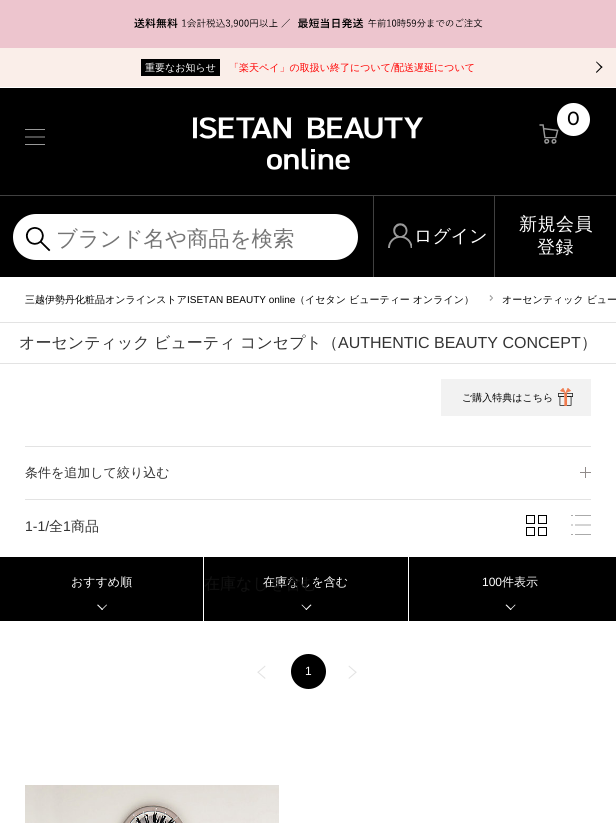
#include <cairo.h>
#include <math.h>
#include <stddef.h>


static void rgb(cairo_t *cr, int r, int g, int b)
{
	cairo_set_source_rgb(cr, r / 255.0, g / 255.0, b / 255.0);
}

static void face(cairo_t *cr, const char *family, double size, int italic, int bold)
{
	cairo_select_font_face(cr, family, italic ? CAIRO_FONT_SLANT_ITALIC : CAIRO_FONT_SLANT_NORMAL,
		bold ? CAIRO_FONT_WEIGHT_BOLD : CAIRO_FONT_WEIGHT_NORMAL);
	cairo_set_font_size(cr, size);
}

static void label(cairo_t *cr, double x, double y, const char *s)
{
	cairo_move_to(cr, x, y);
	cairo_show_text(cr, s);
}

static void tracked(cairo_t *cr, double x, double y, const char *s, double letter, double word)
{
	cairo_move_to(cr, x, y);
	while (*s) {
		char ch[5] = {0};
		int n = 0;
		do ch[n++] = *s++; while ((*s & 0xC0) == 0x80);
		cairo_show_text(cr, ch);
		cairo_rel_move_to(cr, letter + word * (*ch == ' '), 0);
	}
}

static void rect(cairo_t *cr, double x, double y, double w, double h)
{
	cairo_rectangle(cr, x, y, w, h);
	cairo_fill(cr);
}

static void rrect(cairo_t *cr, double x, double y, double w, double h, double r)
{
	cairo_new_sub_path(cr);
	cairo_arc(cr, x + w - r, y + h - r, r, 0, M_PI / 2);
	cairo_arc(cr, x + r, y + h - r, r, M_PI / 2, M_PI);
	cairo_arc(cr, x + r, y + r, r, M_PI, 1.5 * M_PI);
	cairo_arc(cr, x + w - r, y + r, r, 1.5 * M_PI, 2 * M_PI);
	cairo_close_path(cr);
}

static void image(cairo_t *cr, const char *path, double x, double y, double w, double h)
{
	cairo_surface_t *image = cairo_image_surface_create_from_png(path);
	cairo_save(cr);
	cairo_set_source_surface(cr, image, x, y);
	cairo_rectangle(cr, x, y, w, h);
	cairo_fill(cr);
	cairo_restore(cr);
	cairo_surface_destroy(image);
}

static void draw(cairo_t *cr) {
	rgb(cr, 255, 255, 255);
	cairo_paint(cr);
	rgb(cr, 0, 0, 0);
	rect(cr, 0, 88, 616, 189);
	rgb(cr, 237, 197, 206);
	rect(cr, 0, 0, 616, 48);
	image(cr, "image0.png", 134, 18, 349, 11);
	rgb(cr, 250, 238, 233);
	rect(cr, 0, 48, 616, 39);
	rgb(cr, 0, 0, 0);
	rect(cr, 141, 59, 79, 17);
	face(cr, "WenQuanYi Zen Hei Medium", 10, 0, 0);
	rgb(cr, 255, 255, 255);
	label(cr, 145, 71, "重要なお知らせ");
	rgb(cr, 255, 0, 0);
	label(cr, 229, 71, "「楽天ペイ」の取扱い終了について");
	face(cr, "Montserrat", 10, 0, 0);
	label(cr, 391, 71, "/");
	face(cr, "WenQuanYi Zen Hei Medium", 10, 0, 0);
	label(cr, 394, 71, "配送遅延について");
	rgb(cr, 0, 0, 0);
	cairo_new_path(cr);
	cairo_move_to(cr, 602.5, 67);
	cairo_line_to(cr, 596.5, 73);
	cairo_line_to(cr, 596, 72);
	cairo_line_to(cr, 601.5, 66.5);
	cairo_close_path(cr);
	cairo_fill(cr);
	cairo_new_path(cr);
	cairo_move_to(cr, 602.5, 67);
	cairo_line_to(cr, 601.5, 68);
	cairo_line_to(cr, 596, 62);
	cairo_line_to(cr, 596.5, 61.5);
	cairo_close_path(cr);
	cairo_fill(cr);
	image(cr, "image1.png", 25, 129, 20, 16);
	image(cr, "image2.png", 193, 117, 230, 53);
	image(cr, "image3.png", 539, 124, 20, 20);
	rgb(cr, 255, 255, 255);
	cairo_arc(cr, 573.5, 119.5, 16.5, 0, 2 * M_PI);
	cairo_fill(cr);
	face(cr, "Montserrat Medium", 19, 0, 0);
	rgb(cr, 0, 0, 0);
	label(cr, 567, 125, "0");
	rgb(cr, 255, 255, 255);
	rrect(cr, 13, 214, 345, 46, 23);
	cairo_fill(cr);
	image(cr, "image4.png", 25, 227, 26, 25);
	face(cr, "WenQuanYi Zen Hei Medium", 21.4, 0, 0);
	rgb(cr, 117, 117, 117);
	label(cr, 56, 246, "ブランド名や商品を検索");
	rgb(cr, 64, 64, 64);
	rect(cr, 0, 195, 616, 1);
	image(cr, "image5.png", 388, 223, 24, 25);
	rect(cr, 373, 196, 1, 81);
	face(cr, "WenQuanYi Zen Hei Medium", 18, 0, 0);
	rgb(cr, 255, 255, 255);
	label(cr, 414, 242, "ログイン");
	rgb(cr, 64, 64, 64);
	rect(cr, 494, 196, 1, 81);
	rgb(cr, 255, 255, 255);
	tracked(cr, 519, 230, "新規会員", 0.5, 0);
	tracked(cr, 537, 253, "登録", 0.5, 0);
	face(cr, "WenQuanYi Zen Hei Medium", 10, 0, 0);
	rgb(cr, 0, 0, 0);
	label(cr, 25, 303, "三越伊勢丹化粧品オンラインストア");
	face(cr, "Liberation Sans", 10, 0, 0);
	label(cr, 187, 303, "ISETAN BEAUTY online");
	face(cr, "WenQuanYi Zen Hei Medium", 10, 0, 0);
	label(cr, 295, 303, "（イセタン ビューティー オンライン）");
	rgb(cr, 153, 153, 153);
	cairo_new_path(cr);
	cairo_move_to(cr, 493, 298);
	cairo_line_to(cr, 490.5, 301);
	cairo_line_to(cr, 489.5, 300);
	cairo_line_to(cr, 492.5, 297.5);
	cairo_close_path(cr);
	cairo_fill(cr);
	cairo_new_path(cr);
	cairo_move_to(cr, 493, 298);
	cairo_line_to(cr, 492.5, 298.5);
	cairo_line_to(cr, 489.5, 296);
	cairo_line_to(cr, 490.5, 295);
	cairo_close_path(cr);
	cairo_fill(cr);
	rgb(cr, 0, 0, 0);
	label(cr, 502, 303, "オーセンティック ビュー");
	rgb(cr, 227, 227, 227);
	rect(cr, 0, 322, 616, 1);
	rect(cr, 0, 363, 616, 1);
	face(cr, "WenQuanYi Zen Hei Medium", 16, 0, 0);
	rgb(cr, 51, 51, 51);
	label(cr, 19, 348, "オーセンティック");
	label(cr, 154, 348, "ビューティ");
	label(cr, 240, 348, "コンセプト（");
	face(cr, "Liberation Sans", 16, 0, 0);
	label(cr, 338, 348, "AUTHENTIC BEAUTY CONCEPT");
	face(cr, "WenQuanYi Zen Hei Medium", 16, 0, 0);
	label(cr, 581, 348, "）");
	rgb(cr, 242, 242, 242);
	rect(cr, 441, 379, 150, 37);
	face(cr, "WenQuanYi Zen Hei Medium", 10, 0, 0);
	rgb(cr, 0, 0, 0);
	label(cr, 462, 401, "ご購入特典はこちら");
	image(cr, "image6.png", 558, 388, 15, 18);
	rgb(cr, 227, 227, 227);
	rect(cr, 25, 446, 566, 1);
	rect(cr, 25, 499, 566, 1);
	face(cr, "WenQuanYi Zen Hei Medium", 13, 0, 0);
	rgb(cr, 51, 51, 51);
	label(cr, 25, 477, "条件を追加して絞り込む");
	rgb(cr, 145, 139, 138);
	rect(cr, 585, 467, 1, 11);
	rect(cr, 580, 472, 11, 1);
	face(cr, "Liberation Sans", 14, 0, 0);
	rgb(cr, 51, 51, 51);
	label(cr, 25, 531, "1-1/");
	face(cr, "WenQuanYi Zen Hei Medium", 14, 0, 0);
	label(cr, 49, 531, "全");
	face(cr, "Liberation Sans", 14, 0, 0);
	label(cr, 63, 531, "1");
	face(cr, "WenQuanYi Zen Hei Medium", 14, 0, 0);
	label(cr, 71, 531, "商品");
	image(cr, "image7.png", 526, 515, 21, 21);
	image(cr, "image8.png", 571, 515, 20, 20);
	rgb(cr, 0, 0, 0);
	rect(cr, 0, 557, 616, 64);
	face(cr, "WenQuanYi Zen Hei Medium", 12, 0, 0);
	rgb(cr, 255, 255, 255);
	label(cr, 71, 586, "おすすめ順");
	cairo_new_path(cr);
	cairo_move_to(cr, 102, 610);
	cairo_line_to(cr, 97, 605);
	cairo_line_to(cr, 98, 604.5);
	cairo_line_to(cr, 103, 609.5);
	cairo_close_path(cr);
	cairo_fill(cr);
	cairo_new_path(cr);
	cairo_move_to(cr, 102, 610);
	cairo_line_to(cr, 101.5, 609.5);
	cairo_line_to(cr, 106.5, 604.5);
	cairo_line_to(cr, 107, 605);
	cairo_close_path(cr);
	cairo_fill(cr);
	rect(cr, 203, 557, 1, 64);
	label(cr, 263, 586, "在庫なしを含む");
	face(cr, "WenQuanYi Zen Hei Medium", 16, 0, 0);
	rgb(cr, 17, 17, 17);
	label(cr, 204, 589, "在庫なしを含む");
	rgb(cr, 255, 255, 255);
	cairo_new_path(cr);
	cairo_move_to(cr, 306.5, 610);
	cairo_line_to(cr, 301.5, 605);
	cairo_line_to(cr, 302, 604.5);
	cairo_line_to(cr, 307, 609.5);
	cairo_close_path(cr);
	cairo_fill(cr);
	cairo_new_path(cr);
	cairo_move_to(cr, 306.5, 610);
	cairo_line_to(cr, 305.5, 609.5);
	cairo_line_to(cr, 310.5, 604.5);
	cairo_line_to(cr, 311.5, 605);
	cairo_close_path(cr);
	cairo_fill(cr);
	rect(cr, 408, 557, 1, 64);
	face(cr, "Liberation Sans", 12, 0, 0);
	label(cr, 482, 586, "100");
	face(cr, "WenQuanYi Zen Hei Medium", 12, 0, 0);
	label(cr, 502, 586, "件表示");
	cairo_new_path(cr);
	cairo_move_to(cr, 510.5, 610);
	cairo_line_to(cr, 505.5, 605);
	cairo_line_to(cr, 506.5, 604.5);
	cairo_line_to(cr, 511.5, 609.5);
	cairo_close_path(cr);
	cairo_fill(cr);
	cairo_new_path(cr);
	cairo_move_to(cr, 510.5, 610);
	cairo_line_to(cr, 510, 609.5);
	cairo_line_to(cr, 515, 604.5);
	cairo_line_to(cr, 515.5, 605);
	cairo_close_path(cr);
	cairo_fill(cr);
	rgb(cr, 227, 227, 227);
	cairo_new_path(cr);
	cairo_move_to(cr, 258, 671.5);
	cairo_line_to(cr, 265.5, 678);
	cairo_line_to(cr, 265, 679);
	cairo_line_to(cr, 257.5, 672.5);
	cairo_close_path(cr);
	cairo_fill(cr);
	cairo_new_path(cr);
	cairo_move_to(cr, 257.5, 672);
	cairo_line_to(cr, 265, 665.5);
	cairo_line_to(cr, 265.5, 666.5);
	cairo_line_to(cr, 258, 673);
	cairo_close_path(cr);
	cairo_fill(cr);
	rgb(cr, 0, 0, 0);
	cairo_arc(cr, 308.5, 671.5, 17.5, 0, 2 * M_PI);
	cairo_fill(cr);
	face(cr, "Liberation Sans", 12, 0, 0);
	rgb(cr, 255, 255, 255);
	label(cr, 305, 675, "1");
	rgb(cr, 227, 227, 227);
	cairo_new_path(cr);
	cairo_move_to(cr, 348.5, 678);
	cairo_line_to(cr, 356, 671.5);
	cairo_line_to(cr, 356.5, 672.5);
	cairo_line_to(cr, 349, 679);
	cairo_close_path(cr);
	cairo_fill(cr);
	cairo_new_path(cr);
	cairo_move_to(cr, 349, 665.5);
	cairo_line_to(cr, 356.5, 672);
	cairo_line_to(cr, 356, 673);
	cairo_line_to(cr, 348.5, 666.5);
	cairo_close_path(cr);
	cairo_fill(cr);
	image(cr, "image9.png", 25, 785, 254, 38);
}

int main(void) {
	cairo_surface_t *surface = cairo_image_surface_create(CAIRO_FORMAT_RGB24, 616, 823);
	cairo_t *cr = cairo_create(surface);
	cairo_font_options_t *options = cairo_font_options_create();
	cairo_font_options_set_hint_metrics(options, CAIRO_HINT_METRICS_OFF);
	cairo_font_options_set_hint_style(options, CAIRO_HINT_STYLE_NONE);
	cairo_set_font_options(cr, options);
	cairo_set_miter_limit(cr, 4);
	draw(cr);
	cairo_surface_write_to_png(surface, "render.png");
	cairo_font_options_destroy(options);
	cairo_destroy(cr);
	cairo_surface_destroy(surface);
	return 0;
}
